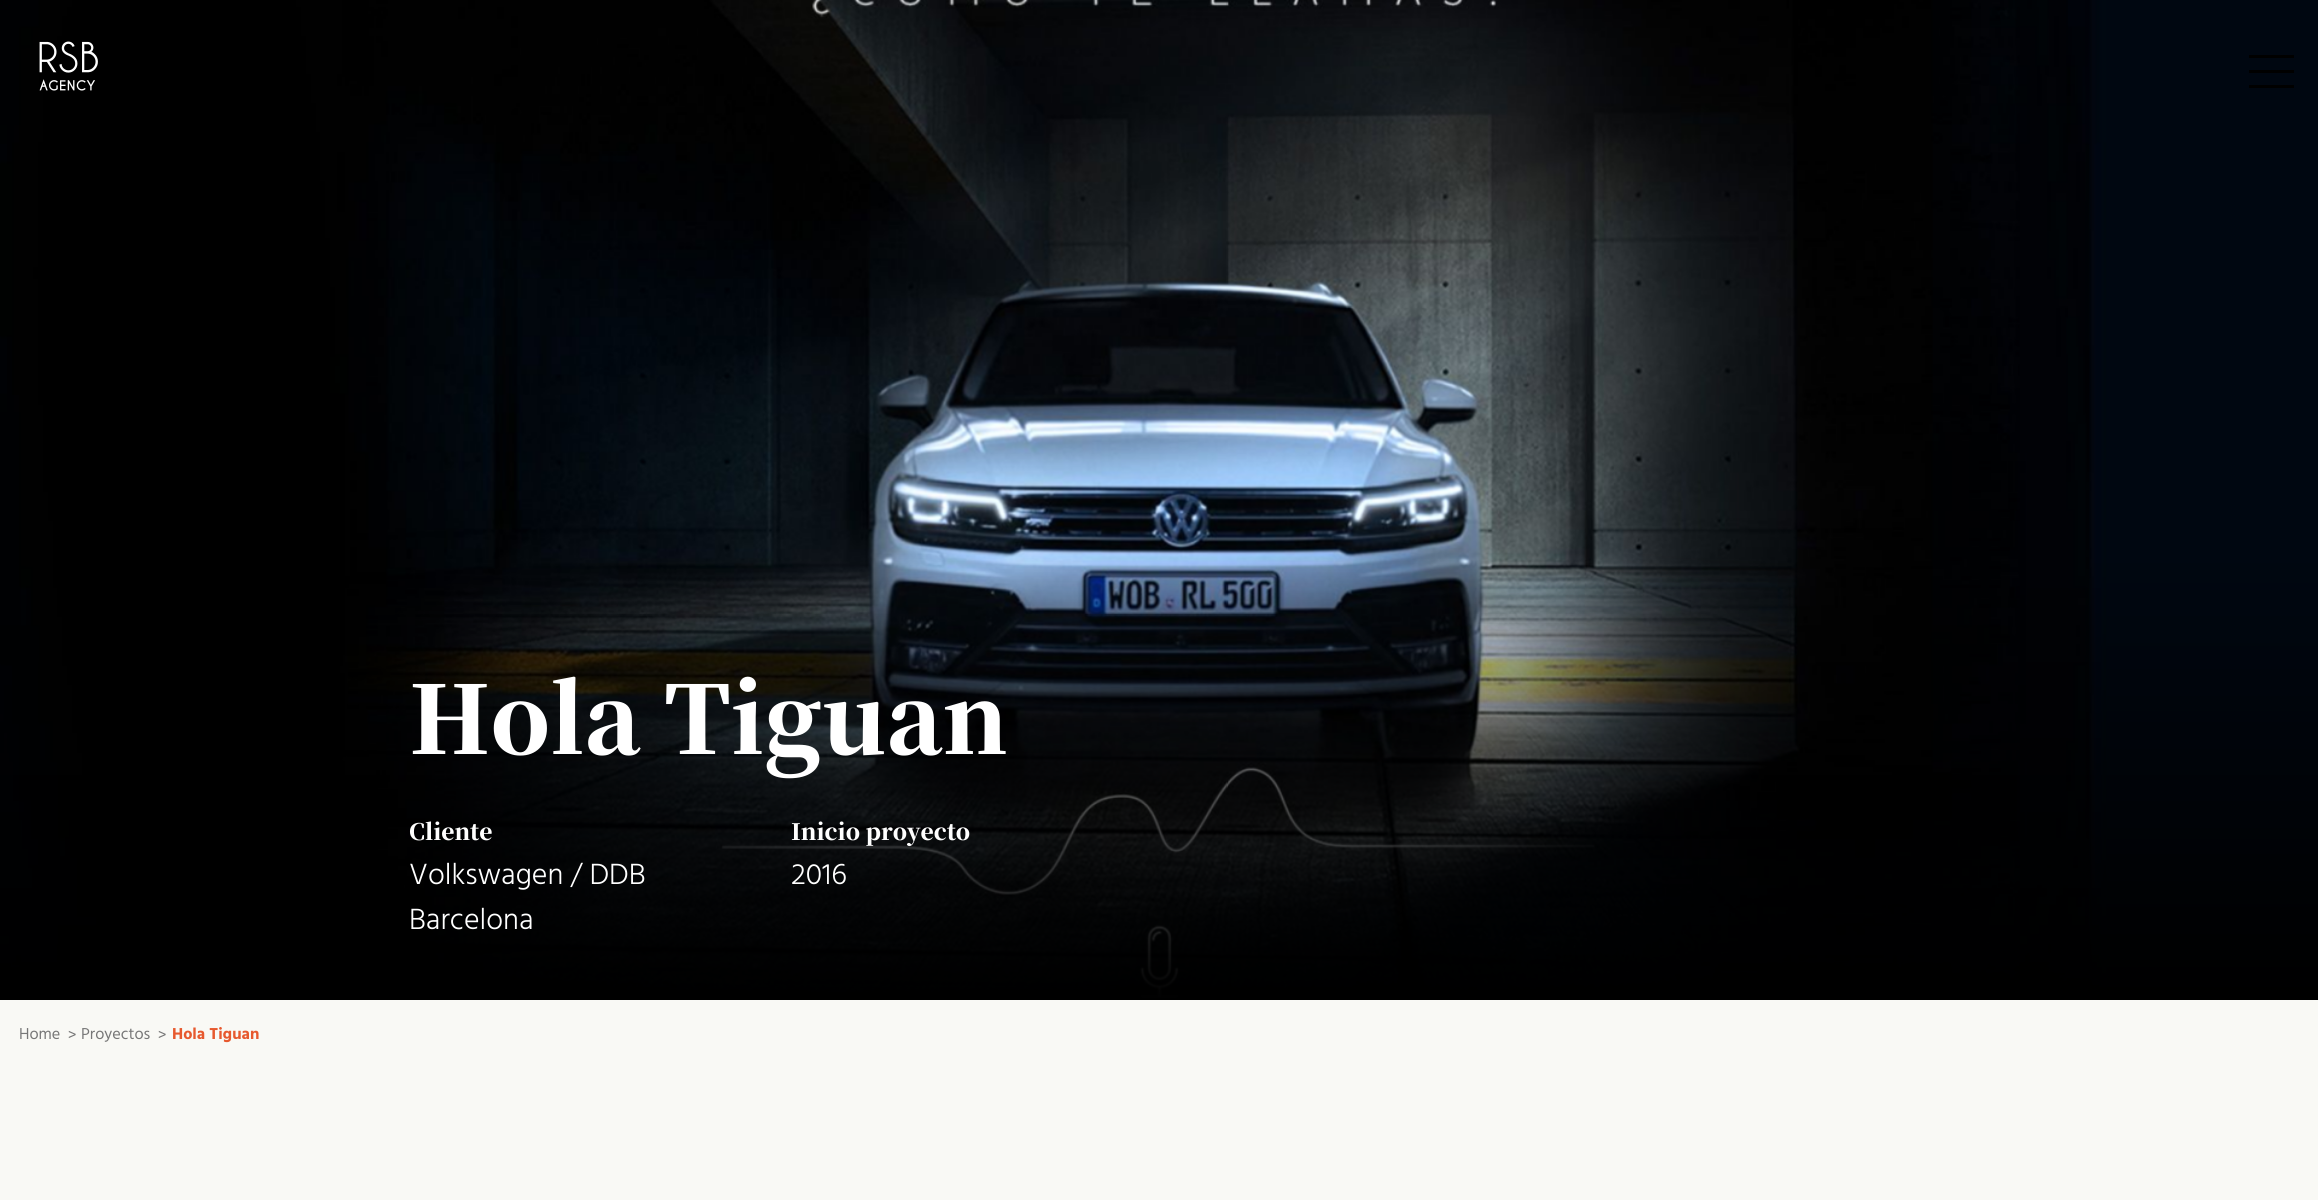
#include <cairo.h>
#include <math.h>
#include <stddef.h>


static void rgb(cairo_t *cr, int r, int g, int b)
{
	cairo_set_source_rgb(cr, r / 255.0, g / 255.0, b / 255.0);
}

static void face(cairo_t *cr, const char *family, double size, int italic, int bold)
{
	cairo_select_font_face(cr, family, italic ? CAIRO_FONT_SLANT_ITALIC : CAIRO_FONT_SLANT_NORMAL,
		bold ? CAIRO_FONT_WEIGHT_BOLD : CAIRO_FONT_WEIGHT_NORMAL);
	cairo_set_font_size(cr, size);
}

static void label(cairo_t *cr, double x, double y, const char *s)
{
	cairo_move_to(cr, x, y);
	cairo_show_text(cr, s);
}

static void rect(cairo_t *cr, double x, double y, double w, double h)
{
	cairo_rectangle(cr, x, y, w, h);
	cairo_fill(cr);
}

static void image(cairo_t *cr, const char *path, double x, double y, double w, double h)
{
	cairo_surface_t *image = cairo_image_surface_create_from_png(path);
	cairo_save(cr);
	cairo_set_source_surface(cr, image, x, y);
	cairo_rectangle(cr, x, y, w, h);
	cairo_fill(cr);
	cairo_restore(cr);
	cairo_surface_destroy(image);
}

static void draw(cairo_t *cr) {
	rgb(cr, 249, 249, 245);
	cairo_paint(cr);
	image(cr, "image1.png", 0, 0, 2318, 1000);
	image(cr, "image0.png", 39, 41, 59, 50);
	rgb(cr, 0, 0, 0);
	rect(cr, 2249, 70, 45, 3);
	rect(cr, 2249, 55, 45, 3);
	rect(cr, 2249, 85, 45, 3);
	face(cr, "Noto Serif JP Black", 93.75, 0, 0);
	rgb(cr, 255, 255, 255);
	label(cr, 409, 754, "Hola Tiguan");
	face(cr, "Noto Serif JP Black", 22.5, 0, 0);
	label(cr, 409, 840, "Cliente");
	face(cr, "Hind Light", 30, 0, 0);
	label(cr, 409, 884, "Volkswagen / DDB");
	label(cr, 409, 929, "Barcelona");
	face(cr, "Noto Serif JP Black", 22.5, 0, 0);
	label(cr, 791, 840, "Inicio proyecto");
	face(cr, "Hind Light", 30, 0, 0);
	label(cr, 791, 884, "2016");
	face(cr, "Hind", 16.25, 0, 0);
	rgb(cr, 119, 119, 119);
	label(cr, 19, 1039, "Home");
	label(cr, 68, 1040, ">");
	label(cr, 81, 1039, "Proyectos");
	label(cr, 158, 1040, ">");
	face(cr, "Hind", 16.25, 0, 1);
	rgb(cr, 231, 89, 46);
	label(cr, 172, 1039, "Hola Tiguan");
}

int main(void) {
	cairo_surface_t *surface = cairo_image_surface_create(CAIRO_FORMAT_RGB24, 2318, 1200);
	cairo_t *cr = cairo_create(surface);
	cairo_font_options_t *options = cairo_font_options_create();
	cairo_font_options_set_hint_metrics(options, CAIRO_HINT_METRICS_OFF);
	cairo_font_options_set_hint_style(options, CAIRO_HINT_STYLE_NONE);
	cairo_set_font_options(cr, options);
	cairo_set_miter_limit(cr, 4);
	draw(cr);
	cairo_surface_write_to_png(surface, "render.png");
	cairo_font_options_destroy(options);
	cairo_destroy(cr);
	cairo_surface_destroy(surface);
	return 0;
}
